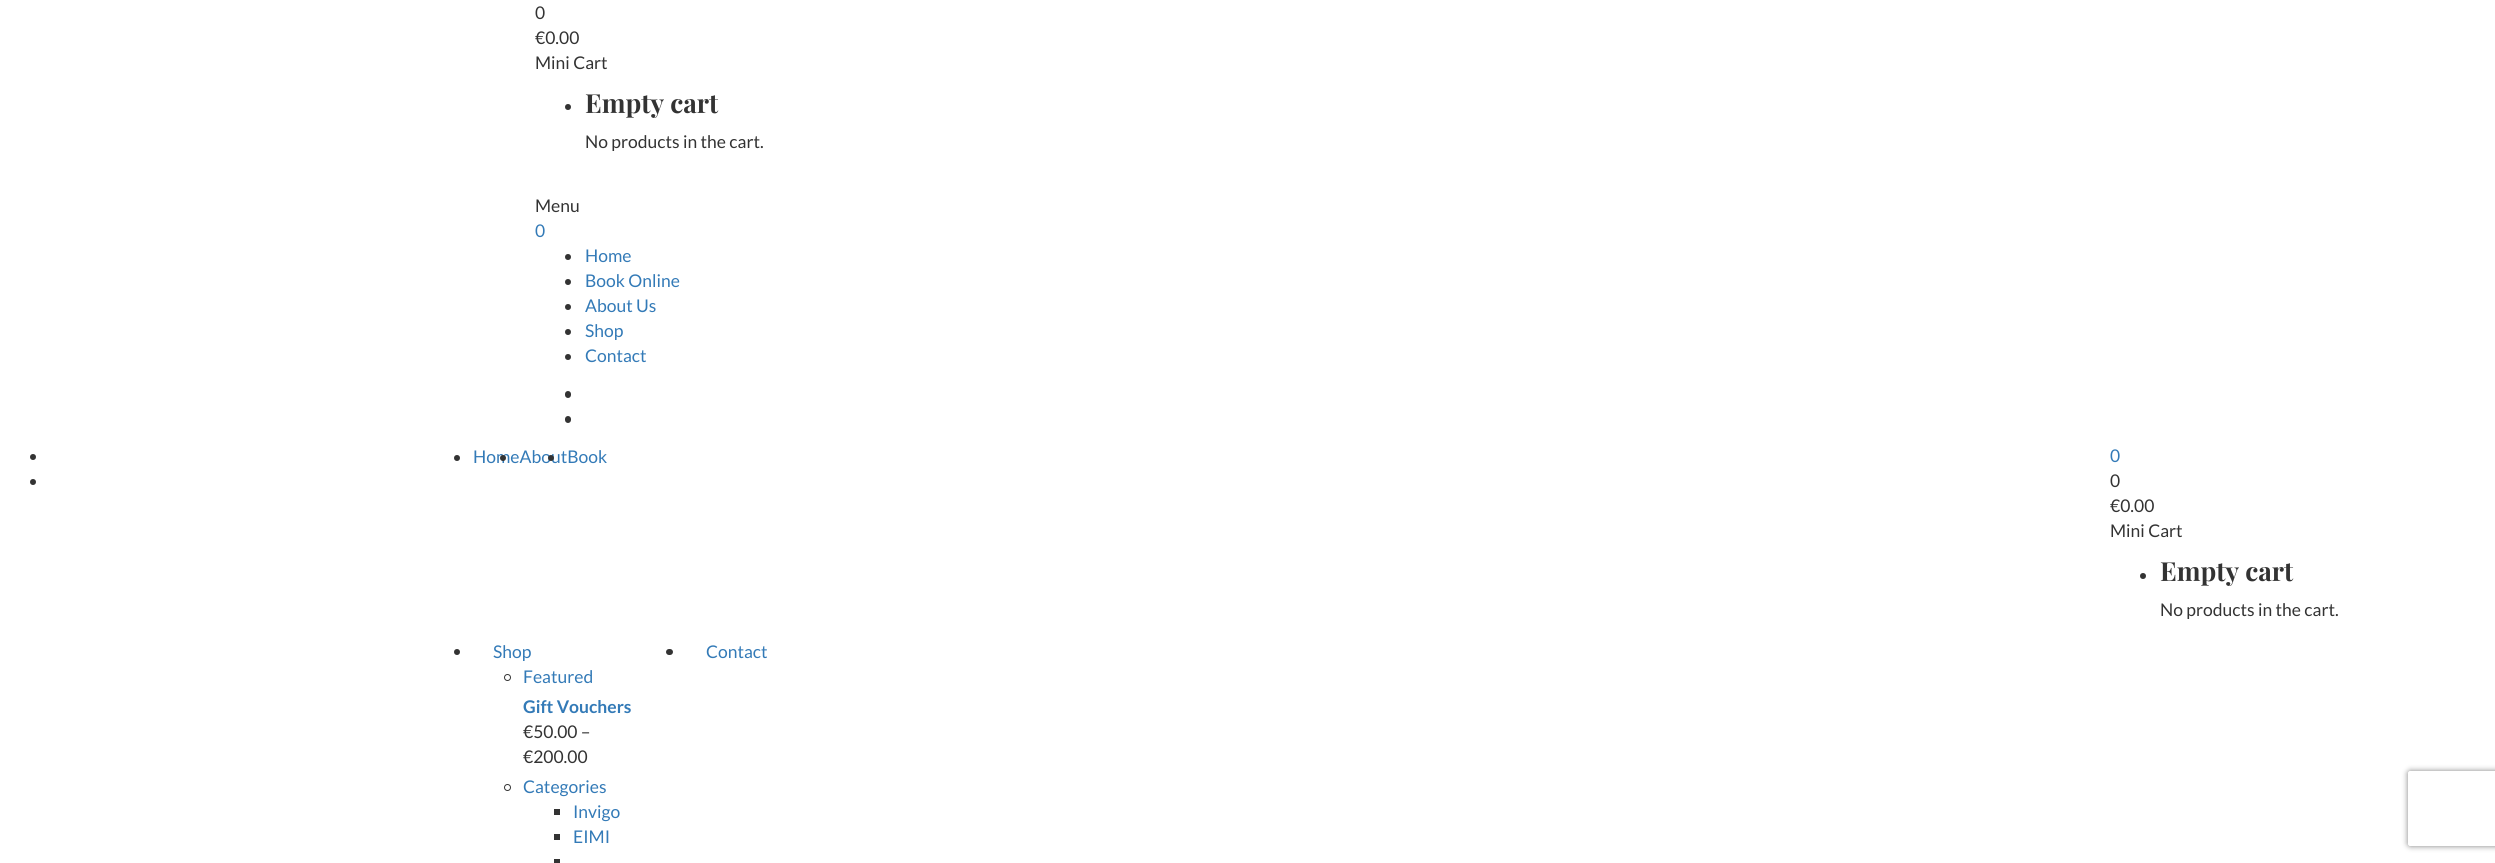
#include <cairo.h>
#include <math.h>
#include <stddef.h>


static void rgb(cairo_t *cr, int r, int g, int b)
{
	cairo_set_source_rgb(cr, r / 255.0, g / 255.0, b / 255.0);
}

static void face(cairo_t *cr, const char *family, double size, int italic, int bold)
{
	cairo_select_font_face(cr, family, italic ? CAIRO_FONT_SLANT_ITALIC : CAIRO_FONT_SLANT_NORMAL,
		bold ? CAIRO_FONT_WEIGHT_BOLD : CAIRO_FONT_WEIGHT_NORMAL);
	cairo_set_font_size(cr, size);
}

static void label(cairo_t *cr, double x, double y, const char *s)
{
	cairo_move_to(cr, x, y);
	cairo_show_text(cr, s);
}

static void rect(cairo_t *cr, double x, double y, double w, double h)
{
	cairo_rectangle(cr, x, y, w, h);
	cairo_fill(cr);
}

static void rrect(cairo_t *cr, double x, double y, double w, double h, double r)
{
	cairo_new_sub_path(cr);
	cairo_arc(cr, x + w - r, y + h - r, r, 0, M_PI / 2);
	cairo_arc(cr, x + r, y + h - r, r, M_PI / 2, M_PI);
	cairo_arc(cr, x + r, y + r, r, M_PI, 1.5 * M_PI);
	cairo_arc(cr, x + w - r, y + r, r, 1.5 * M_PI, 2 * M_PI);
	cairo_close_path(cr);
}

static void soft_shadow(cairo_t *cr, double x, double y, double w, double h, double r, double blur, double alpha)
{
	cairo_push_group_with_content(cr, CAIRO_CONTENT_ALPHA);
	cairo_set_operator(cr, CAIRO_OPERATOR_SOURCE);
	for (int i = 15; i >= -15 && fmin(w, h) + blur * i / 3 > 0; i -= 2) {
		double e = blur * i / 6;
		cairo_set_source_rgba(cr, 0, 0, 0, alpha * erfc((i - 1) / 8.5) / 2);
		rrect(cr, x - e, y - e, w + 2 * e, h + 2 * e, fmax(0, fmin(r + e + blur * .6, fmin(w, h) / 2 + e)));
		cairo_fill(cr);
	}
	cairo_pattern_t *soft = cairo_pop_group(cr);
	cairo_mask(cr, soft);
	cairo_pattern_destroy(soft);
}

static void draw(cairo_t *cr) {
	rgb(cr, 255, 255, 255);
	cairo_paint(cr);
	face(cr, "Lato", 17.5, 0, 0);
	rgb(cr, 51, 51, 51);
	label(cr, 535, 19, "0");
	label(cr, 535, 44, "€0.00");
	label(cr, 535, 69, "Mini Cart");
	cairo_new_path(cr);
	cairo_arc(cr, 568, 107, 3, 0, 2 * M_PI);
	cairo_fill(cr);
	face(cr, "Playfair Display", 26.25, 0, 1);
	label(cr, 585, 113, "Empty cart");
	face(cr, "Lato", 17.5, 0, 0);
	label(cr, 585, 148, "No products in the cart.");
	label(cr, 535, 212, "Menu");
	rgb(cr, 51, 122, 183);
	label(cr, 535, 237, "0");
	rgb(cr, 51, 51, 51);
	cairo_new_path(cr);
	cairo_arc(cr, 568, 257, 3, 0, 2 * M_PI);
	cairo_fill(cr);
	rgb(cr, 51, 122, 183);
	label(cr, 585, 262, "Home");
	rgb(cr, 51, 51, 51);
	cairo_new_path(cr);
	cairo_arc(cr, 568, 282, 3, 0, 2 * M_PI);
	cairo_fill(cr);
	rgb(cr, 51, 122, 183);
	label(cr, 585, 287, "Book Online");
	rgb(cr, 51, 51, 51);
	cairo_new_path(cr);
	cairo_arc(cr, 568, 307, 3, 0, 2 * M_PI);
	cairo_fill(cr);
	rgb(cr, 51, 122, 183);
	label(cr, 585, 312, "About Us");
	rgb(cr, 51, 51, 51);
	cairo_new_path(cr);
	cairo_arc(cr, 568, 332, 3, 0, 2 * M_PI);
	cairo_fill(cr);
	rgb(cr, 51, 122, 183);
	label(cr, 585, 337, "Shop");
	rgb(cr, 51, 51, 51);
	cairo_new_path(cr);
	cairo_arc(cr, 568, 357, 3, 0, 2 * M_PI);
	cairo_fill(cr);
	rgb(cr, 51, 122, 183);
	label(cr, 585, 362, "Contact");
	rgb(cr, 51, 51, 51);
	rrect(cr, 565, 391, 6, 7, 3);
	cairo_fill(cr);
	rrect(cr, 565, 416, 6, 7, 3);
	cairo_fill(cr);
	cairo_arc(cr, 33, 457, 3, 0, 2 * M_PI);
	cairo_fill(cr);
	cairo_arc(cr, 33, 482, 3, 0, 2 * M_PI);
	cairo_fill(cr);
	cairo_arc(cr, 457, 458, 3, 0, 2 * M_PI);
	cairo_fill(cr);
	rgb(cr, 51, 122, 183);
	label(cr, 473, 463, "HomeAboutBook");
	rgb(cr, 51, 51, 51);
	cairo_new_path(cr);
	cairo_arc(cr, 503, 458, 3, 0, 2 * M_PI);
	cairo_fill(cr);
	cairo_arc(cr, 551, 458, 3, 0, 2 * M_PI);
	cairo_fill(cr);
	cairo_arc(cr, 457, 652, 3, 0, 2 * M_PI);
	cairo_fill(cr);
	rgb(cr, 51, 122, 183);
	label(cr, 493, 658, "Shop");
	cairo_new_path(cr);
	cairo_arc(cr, 507.5, 677.5, 3, 0, 2 * M_PI);
	rgb(cr, 51, 51, 51);
	cairo_set_line_width(cr, 1);
	cairo_stroke(cr);
	rgb(cr, 51, 122, 183);
	label(cr, 523, 683, "Featured");
	face(cr, "Lato", 17.5, 0, 1);
	label(cr, 523, 713, "Gift Vouchers");
	face(cr, "Lato", 17.5, 0, 0);
	rgb(cr, 51, 51, 51);
	label(cr, 523, 738, "€50.00 –");
	label(cr, 523, 763, "€200.00");
	cairo_new_path(cr);
	cairo_arc(cr, 507.5, 787.5, 3, 0, 2 * M_PI);
	cairo_stroke(cr);
	rgb(cr, 51, 122, 183);
	label(cr, 523, 793, "Categories");
	rgb(cr, 51, 51, 51);
	rect(cr, 554, 809, 6, 6);
	rgb(cr, 51, 122, 183);
	label(cr, 573, 818, "Invigo");
	rgb(cr, 51, 51, 51);
	rect(cr, 554, 834, 6, 6);
	rgb(cr, 51, 122, 183);
	label(cr, 573, 843, "EIMI");
	rgb(cr, 51, 51, 51);
	rect(cr, 554, 859, 6, 4);
	rrect(cr, 666, 649, 7, 6, 3);
	cairo_fill(cr);
	rgb(cr, 51, 122, 183);
	label(cr, 706, 658, "Contact");
	label(cr, 2110, 462, "0");
	rgb(cr, 51, 51, 51);
	label(cr, 2110, 487, "0");
	label(cr, 2110, 512, "€0.00");
	label(cr, 2110, 537, "Mini Cart");
	cairo_new_path(cr);
	cairo_arc(cr, 2143, 576, 3, 0, 2 * M_PI);
	cairo_fill(cr);
	face(cr, "Playfair Display", 26.25, 0, 1);
	label(cr, 2160, 581, "Empty cart");
	face(cr, "Lato", 17.5, 0, 0);
	label(cr, 2160, 616, "No products in the cart.");
	cairo_save(cr);
	cairo_set_fill_rule(cr, CAIRO_FILL_RULE_EVEN_ODD);
	cairo_new_path(cr);
	cairo_move_to(cr, 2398, 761);
	cairo_line_to(cr, 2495, 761);
	cairo_line_to(cr, 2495, 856);
	cairo_line_to(cr, 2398, 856);
	cairo_close_path(cr);
	cairo_move_to(cr, 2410.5, 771);
	cairo_line_to(cr, 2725.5, 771);
	cairo_curve_to(cr, 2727, 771, 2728, 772, 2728, 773.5);
	cairo_line_to(cr, 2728, 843.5);
	cairo_curve_to(cr, 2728, 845, 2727, 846, 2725.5, 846);
	cairo_line_to(cr, 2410.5, 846);
	cairo_curve_to(cr, 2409, 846, 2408, 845, 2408, 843.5);
	cairo_line_to(cr, 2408, 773.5);
	cairo_curve_to(cr, 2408, 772, 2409, 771, 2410.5, 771);
	cairo_close_path(cr);
	cairo_clip(cr);
	rgb(cr, 128, 128, 128);
	soft_shadow(cr, 2408, 771, 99, 75, 2.5, 3, 1);
	cairo_restore(cr);
}

int main(void) {
	cairo_surface_t *surface = cairo_image_surface_create(CAIRO_FORMAT_RGB24, 2495, 863);
	cairo_t *cr = cairo_create(surface);
	cairo_font_options_t *options = cairo_font_options_create();
	cairo_font_options_set_hint_metrics(options, CAIRO_HINT_METRICS_OFF);
	cairo_font_options_set_hint_style(options, CAIRO_HINT_STYLE_NONE);
	cairo_set_font_options(cr, options);
	cairo_set_miter_limit(cr, 4);
	draw(cr);
	cairo_surface_write_to_png(surface, "render.png");
	cairo_font_options_destroy(options);
	cairo_destroy(cr);
	cairo_surface_destroy(surface);
	return 0;
}
